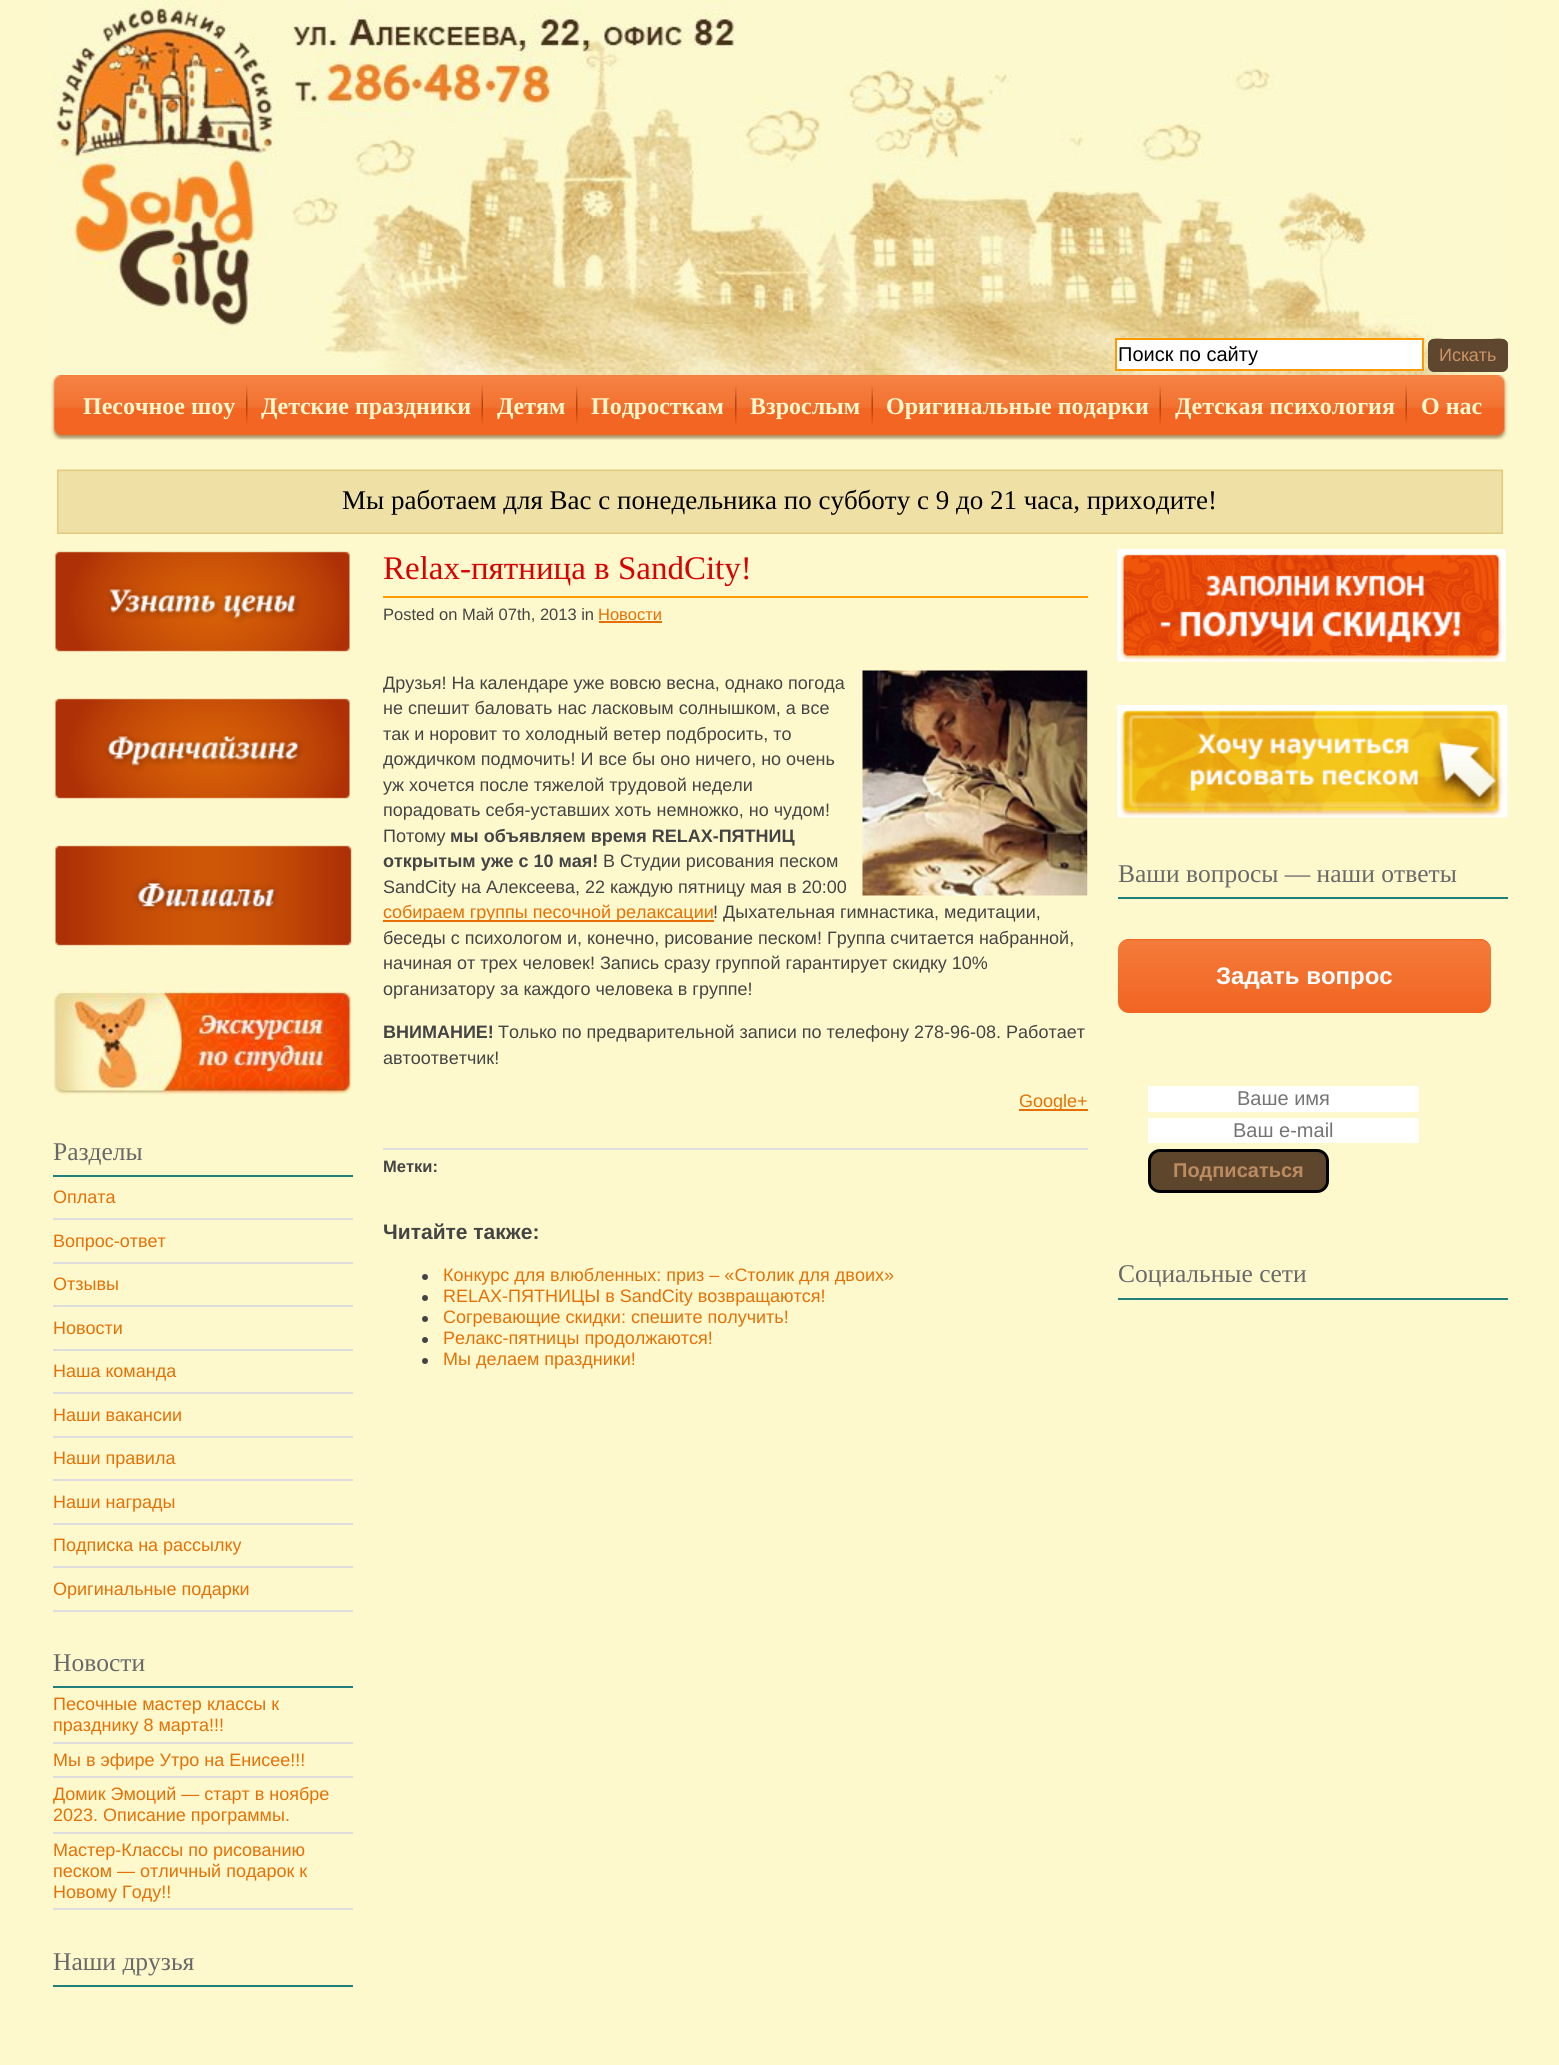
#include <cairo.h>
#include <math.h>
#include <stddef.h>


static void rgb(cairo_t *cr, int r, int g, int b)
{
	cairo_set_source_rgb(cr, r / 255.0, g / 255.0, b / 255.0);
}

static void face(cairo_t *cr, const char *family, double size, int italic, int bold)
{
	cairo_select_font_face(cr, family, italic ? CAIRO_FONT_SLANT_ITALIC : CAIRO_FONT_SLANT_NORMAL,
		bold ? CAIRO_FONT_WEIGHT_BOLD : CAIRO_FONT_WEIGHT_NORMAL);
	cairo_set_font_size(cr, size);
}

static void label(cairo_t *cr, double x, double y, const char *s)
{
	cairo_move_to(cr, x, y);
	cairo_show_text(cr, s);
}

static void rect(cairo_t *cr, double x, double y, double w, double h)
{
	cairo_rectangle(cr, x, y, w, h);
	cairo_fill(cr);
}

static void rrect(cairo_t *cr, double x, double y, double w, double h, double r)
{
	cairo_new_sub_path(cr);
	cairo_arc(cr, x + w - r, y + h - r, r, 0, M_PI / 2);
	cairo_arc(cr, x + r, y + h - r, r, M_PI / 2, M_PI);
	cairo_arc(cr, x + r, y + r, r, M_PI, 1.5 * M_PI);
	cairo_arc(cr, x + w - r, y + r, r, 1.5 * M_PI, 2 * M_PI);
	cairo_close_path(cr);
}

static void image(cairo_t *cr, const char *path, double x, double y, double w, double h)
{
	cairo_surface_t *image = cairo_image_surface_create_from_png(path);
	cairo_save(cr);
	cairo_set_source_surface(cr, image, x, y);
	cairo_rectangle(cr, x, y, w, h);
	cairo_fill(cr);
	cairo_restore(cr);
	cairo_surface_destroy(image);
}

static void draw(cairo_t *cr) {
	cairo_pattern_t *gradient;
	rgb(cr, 253, 249, 205);
	cairo_paint(cr);
	image(cr, "image0.png", 52, 0, 1446, 377);
	rgb(cr, 255, 255, 255);
	cairo_rectangle(cr, 1116, 339, 307, 31);
	cairo_fill_preserve(cr);
	rgb(cr, 255, 153, 0);
	cairo_stroke(cr);
	face(cr, "Liberation Sans", 20, 0, 0);
	rgb(cr, 0, 0, 0);
	label(cr, 1118, 361, "Поиск по сайту");
	rgb(cr, 95, 70, 46);
	rrect(cr, 1428, 339, 80, 33, 6);
	cairo_fill(cr);
	cairo_new_path(cr);
	cairo_move_to(cr, 1434, 340);
	cairo_line_to(cr, 1502, 340);
	cairo_curve_to(cr, 1505, 340, 1508, 343, 1508, 346);
	cairo_curve_to(cr, 1508, 336, 1497, 339, 1491, 339);
	cairo_line_to(cr, 1445, 339);
	cairo_curve_to(cr, 1439, 339, 1428, 336, 1428, 346);
	cairo_curve_to(cr, 1428, 343, 1431, 340, 1434, 340);
	cairo_close_path(cr);
	cairo_fill(cr);
	face(cr, "Liberation Sans", 18, 0, 0);
	rgb(cr, 204, 149, 103);
	label(cr, 1439, 361, "Искать");
	image(cr, "image1.png", 51, 375, 1457, 65);
	face(cr, "Liberation Serif", 24, 0, 1);
	rgb(cr, 253, 249, 205);
	label(cr, 83, 414, "Песочное шоу");
	image(cr, "image2.png", 246, 385, 2, 40);
	label(cr, 261, 414, "Детские праздники");
	image(cr, "image3.png", 481, 385, 2, 40);
	label(cr, 497, 414, "Детям");
	image(cr, "image2.png", 576, 385, 2, 40);
	label(cr, 591, 414, "Подросткам");
	image(cr, "image2.png", 735, 385, 2, 40);
	label(cr, 750, 414, "Взрослым");
	image(cr, "image3.png", 871, 385, 2, 40);
	label(cr, 886, 414, "Оригинальные подарки");
	image(cr, "image3.png", 1159, 385, 2, 40);
	label(cr, 1175, 414, "Детская психология");
	image(cr, "image3.png", 1405, 385, 2, 40);
	label(cr, 1421, 414, "О нас");
	image(cr, "image4.png", 57, 469, 1446, 65);
	face(cr, "Liberation Serif", 27, 0, 0);
	rgb(cr, 0, 0, 0);
	label(cr, 342, 509, "Мы работаем для Вас с понедельника по субботу с 9 до 21 часа, приходите!");
	rgb(cr, 255, 153, 0);
	rect(cr, 383, 596, 705, 2);
	face(cr, "Liberation Serif", 33, 0, 0);
	rgb(cr, 217, 2, 2);
	label(cr, 383, 579, "Relax-пятница в SandCity!");
	face(cr, "Liberation Sans", 16.5, 0, 0);
	rgb(cr, 68, 68, 68);
	label(cr, 383, 620, "Posted on Май 07th, 2013 in");
	rgb(cr, 230, 112, 6);
	label(cr, 598, 620, "Новости");
	rect(cr, 599, 621, 63, 2);
	cairo_save(cr);
	cairo_rectangle(cr, 383, 653, 705, 480);
	cairo_clip(cr);
	face(cr, "Liberation Sans", 18, 0, 0);
	rgb(cr, 68, 68, 68);
	label(cr, 383, 689, "Друзья! На календаре уже вовсю весна, однако погода");
	cairo_restore(cr);
	image(cr, "image5.png", 862, 670, 226, 226);
	face(cr, "Liberation Sans", 18, 0, 0);
	rgb(cr, 68, 68, 68);
	label(cr, 383, 714, "не спешит баловать нас ласковым солнышком, а все");
	label(cr, 383, 740, "так и норовит то холодный ветер подбросить, то");
	cairo_save(cr);
	cairo_rectangle(cr, 383, 653, 705, 480);
	cairo_clip(cr);
	label(cr, 383, 765, "дождичком подмочить! И все бы оно ничего, но очень");
	cairo_restore(cr);
	label(cr, 383, 791, "уж хочется после тяжелой трудовой недели");
	label(cr, 383, 816, "порадовать себя-уставших хоть немножко, но чудом!");
	label(cr, 383, 842, "Потому");
	face(cr, "Liberation Sans", 18, 0, 1);
	label(cr, 450, 842, "мы объявляем время RELAX-ПЯТНИЦ");
	label(cr, 383, 867, "открытым уже с 10 мая!");
	face(cr, "Liberation Sans", 18, 0, 0);
	label(cr, 603, 867, "В Студии рисования песком");
	label(cr, 383, 893, "SandCity на Алексеева, 22 каждую пятницу мая в 20:00");
	rgb(cr, 230, 112, 6);
	rect(cr, 383, 920, 331, 2);
	label(cr, 383, 918, "собираем группы песочной релаксации");
	rgb(cr, 68, 68, 68);
	label(cr, 713, 918, "! Дыхательная гимнастика, медитации,");
	label(cr, 383, 944, "беседы с психологом и, конечно, рисование песком! Группа считается набранной,");
	label(cr, 383, 969, "начиная от трех человек! Запись сразу группой гарантирует скидку 10%");
	label(cr, 383, 995, "организатору за каждого человека в группе!");
	face(cr, "Liberation Sans", 18, 0, 1);
	label(cr, 383, 1038, "ВНИМАНИЕ!");
	face(cr, "Liberation Sans", 18, 0, 0);
	label(cr, 498, 1038, "Только по предварительной записи по телефону 278-96-08. Работает");
	label(cr, 383, 1064, "автоответчик!");
	rgb(cr, 230, 112, 6);
	rect(cr, 1019, 1109, 69, 2);
	label(cr, 1019, 1107, "Google+");
	rgb(cr, 221, 221, 221);
	rect(cr, 383, 1148, 705, 2);
	face(cr, "Liberation Sans", 16.5, 0, 1);
	rgb(cr, 68, 68, 68);
	label(cr, 383, 1172, "Метки:");
	face(cr, "Liberation Sans", 21, 0, 1);
	label(cr, 383, 1239, "Читайте также:");
	cairo_new_path(cr);
	cairo_arc(cr, 425, 1277, 3, 0, 2 * M_PI);
	cairo_fill(cr);
	face(cr, "Liberation Sans", 18, 0, 0);
	rgb(cr, 230, 112, 6);
	label(cr, 443, 1281, "Конкурс для влюбленных: приз – «Столик для двоих»");
	rgb(cr, 68, 68, 68);
	cairo_new_path(cr);
	cairo_arc(cr, 425, 1298, 3, 0, 2 * M_PI);
	cairo_fill(cr);
	rgb(cr, 230, 112, 6);
	label(cr, 443, 1302, "RELAX-ПЯТНИЦЫ в SandCity возвращаются!");
	rgb(cr, 68, 68, 68);
	cairo_new_path(cr);
	cairo_arc(cr, 425, 1319, 3, 0, 2 * M_PI);
	cairo_fill(cr);
	rgb(cr, 230, 112, 6);
	label(cr, 443, 1323, "Согревающие скидки: спешите получить!");
	rgb(cr, 68, 68, 68);
	cairo_new_path(cr);
	cairo_arc(cr, 425, 1340, 3, 0, 2 * M_PI);
	cairo_fill(cr);
	rgb(cr, 230, 112, 6);
	label(cr, 443, 1344, "Релакс-пятницы продолжаются!");
	rgb(cr, 68, 68, 68);
	cairo_new_path(cr);
	cairo_arc(cr, 425, 1361, 3, 0, 2 * M_PI);
	cairo_fill(cr);
	rgb(cr, 230, 112, 6);
	label(cr, 443, 1365, "Мы делаем праздники!");
	image(cr, "image6.png", 1117, 549, 389, 113);
	image(cr, "image7.png", 1117, 705, 391, 113);
	rgb(cr, 32, 127, 123);
	rect(cr, 1118, 897, 390, 2);
	face(cr, "Liberation Serif", 25.5, 0, 0);
	rgb(cr, 105, 105, 105);
	label(cr, 1118, 882, "Ваши вопросы — наши ответы");
	gradient = cairo_pattern_create_linear(1118, 939, 1118, 1013);
	cairo_pattern_add_color_stop_rgba(gradient, 0.05, 0.953, 0.478, 0.224, 1);
	cairo_pattern_add_color_stop_rgba(gradient, 1, 0.949, 0.392, 0.133, 1);
	cairo_set_source(cr, gradient);
	cairo_pattern_destroy(gradient);
	rrect(cr, 1118, 939, 373, 74, 11);
	cairo_fill(cr);
	rgb(cr, 242, 100, 34);
	cairo_new_path(cr);
	cairo_move_to(cr, 1128, 940);
	cairo_line_to(cr, 1480, 940);
	cairo_curve_to(cr, 1486, 940, 1491, 945, 1491, 951);
	cairo_line_to(cr, 1491, 950);
	cairo_curve_to(cr, 1491, 944, 1486, 939, 1480, 939);
	cairo_line_to(cr, 1129, 939);
	cairo_curve_to(cr, 1123, 939, 1118, 944, 1118, 950);
	cairo_line_to(cr, 1118, 951);
	cairo_curve_to(cr, 1118, 945, 1122, 940, 1128, 940);
	cairo_close_path(cr);
	cairo_fill(cr);
	face(cr, "Liberation Sans", 24, 0, 1);
	rgb(cr, 255, 255, 255);
	label(cr, 1216, 984, "Задать вопрос");
	rect(cr, 1148, 1086, 271, 26);
	face(cr, "Liberation Sans", 20, 0, 0);
	rgb(cr, 117, 117, 117);
	label(cr, 1237, 1105, "Ваше имя");
	rgb(cr, 255, 255, 255);
	rect(cr, 1148, 1118, 271, 25);
	rgb(cr, 117, 117, 117);
	label(cr, 1233, 1137, "Ваш e-mail");
	rgb(cr, 94, 70, 45);
	rrect(cr, 1149.5, 1150.5, 178, 41, 10.5);
	cairo_fill_preserve(cr);
	rgb(cr, 0, 0, 0);
	cairo_set_line_width(cr, 3);
	cairo_stroke(cr);
	face(cr, "Liberation Sans", 20, 0, 1);
	rgb(cr, 187, 139, 97);
	label(cr, 1173, 1177, "Подписаться");
	rgb(cr, 32, 127, 123);
	rect(cr, 1118, 1298, 390, 2);
	face(cr, "Liberation Serif", 25.5, 0, 0);
	rgb(cr, 105, 105, 105);
	label(cr, 1118, 1282, "Социальные сети");
	image(cr, "image8.png", 55, 551, 295, 101);
	image(cr, "image9.png", 55, 698, 295, 101);
	image(cr, "image10.png", 55, 845, 297, 101);
	image(cr, "image11.png", 52, 990, 299, 105);
	rgb(cr, 32, 127, 123);
	rect(cr, 53, 1175, 300, 2);
	rgb(cr, 105, 105, 105);
	label(cr, 53, 1160, "Разделы");
	rgb(cr, 221, 221, 221);
	rect(cr, 53, 1218, 300, 2);
	face(cr, "Liberation Sans", 18, 0, 0);
	rgb(cr, 230, 112, 6);
	label(cr, 53, 1203, "Оплата");
	rgb(cr, 221, 221, 221);
	rect(cr, 53, 1262, 300, 2);
	rgb(cr, 230, 112, 6);
	label(cr, 53, 1247, "Вопрос-ответ");
	rgb(cr, 221, 221, 221);
	rect(cr, 53, 1305, 300, 2);
	rgb(cr, 230, 112, 6);
	label(cr, 53, 1290, "Отзывы");
	rgb(cr, 221, 221, 221);
	rect(cr, 53, 1349, 300, 2);
	rgb(cr, 230, 112, 6);
	label(cr, 53, 1334, "Новости");
	rgb(cr, 221, 221, 221);
	rect(cr, 53, 1392, 300, 2);
	rgb(cr, 230, 112, 6);
	label(cr, 53, 1377, "Наша команда");
	rgb(cr, 221, 221, 221);
	rect(cr, 53, 1436, 300, 2);
	rgb(cr, 230, 112, 6);
	label(cr, 53, 1421, "Наши вакансии");
	rgb(cr, 221, 221, 221);
	rect(cr, 53, 1479, 300, 2);
	rgb(cr, 230, 112, 6);
	label(cr, 53, 1464, "Наши правила");
	rgb(cr, 221, 221, 221);
	rect(cr, 53, 1523, 300, 2);
	rgb(cr, 230, 112, 6);
	label(cr, 53, 1508, "Наши награды");
	rgb(cr, 221, 221, 221);
	rect(cr, 53, 1566, 300, 2);
	rgb(cr, 230, 112, 6);
	label(cr, 53, 1551, "Подписка на рассылку");
	rgb(cr, 221, 221, 221);
	rect(cr, 53, 1610, 300, 2);
	rgb(cr, 230, 112, 6);
	label(cr, 53, 1595, "Оригинальные подарки");
	rgb(cr, 32, 127, 123);
	rect(cr, 53, 1686, 300, 2);
	face(cr, "Liberation Serif", 25.5, 0, 0);
	rgb(cr, 105, 105, 105);
	label(cr, 53, 1671, "Новости");
	rgb(cr, 221, 221, 221);
	rect(cr, 53, 1742, 300, 2);
	face(cr, "Liberation Sans", 18, 0, 0);
	rgb(cr, 230, 112, 6);
	label(cr, 53, 1710, "Песочные мастер классы к");
	label(cr, 53, 1731, "празднику 8 марта!!!");
	rgb(cr, 221, 221, 221);
	rect(cr, 53, 1776, 300, 2);
	rgb(cr, 230, 112, 6);
	label(cr, 53, 1766, "Мы в эфире Утро на Енисее!!!");
	rgb(cr, 221, 221, 221);
	rect(cr, 53, 1832, 300, 2);
	cairo_save(cr);
	cairo_rectangle(cr, 53, 549, 1455, 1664);
	cairo_clip(cr);
	rgb(cr, 230, 112, 6);
	label(cr, 53, 1800, "Домик Эмоций — старт в ноябре");
	cairo_restore(cr);
	rgb(cr, 230, 112, 6);
	label(cr, 53, 1821, "2023. Описание программы.");
	rgb(cr, 221, 221, 221);
	rect(cr, 53, 1908, 300, 2);
	rgb(cr, 230, 112, 6);
	label(cr, 53, 1856, "Мастер-Классы по рисованию");
	label(cr, 53, 1877, "песком — отличный подарок к");
	label(cr, 53, 1898, "Новому Году!!");
	rgb(cr, 32, 127, 123);
	rect(cr, 53, 1985, 300, 2);
	face(cr, "Liberation Serif", 25.5, 0, 0);
	rgb(cr, 105, 105, 105);
	label(cr, 53, 1970, "Наши друзья");
}

int main(void) {
	cairo_surface_t *surface = cairo_image_surface_create(CAIRO_FORMAT_RGB24, 1559, 2065);
	cairo_t *cr = cairo_create(surface);
	cairo_font_options_t *options = cairo_font_options_create();
	cairo_font_options_set_hint_metrics(options, CAIRO_HINT_METRICS_OFF);
	cairo_font_options_set_hint_style(options, CAIRO_HINT_STYLE_NONE);
	cairo_set_font_options(cr, options);
	cairo_set_miter_limit(cr, 4);
	draw(cr);
	cairo_surface_write_to_png(surface, "render.png");
	cairo_font_options_destroy(options);
	cairo_destroy(cr);
	cairo_surface_destroy(surface);
	return 0;
}
